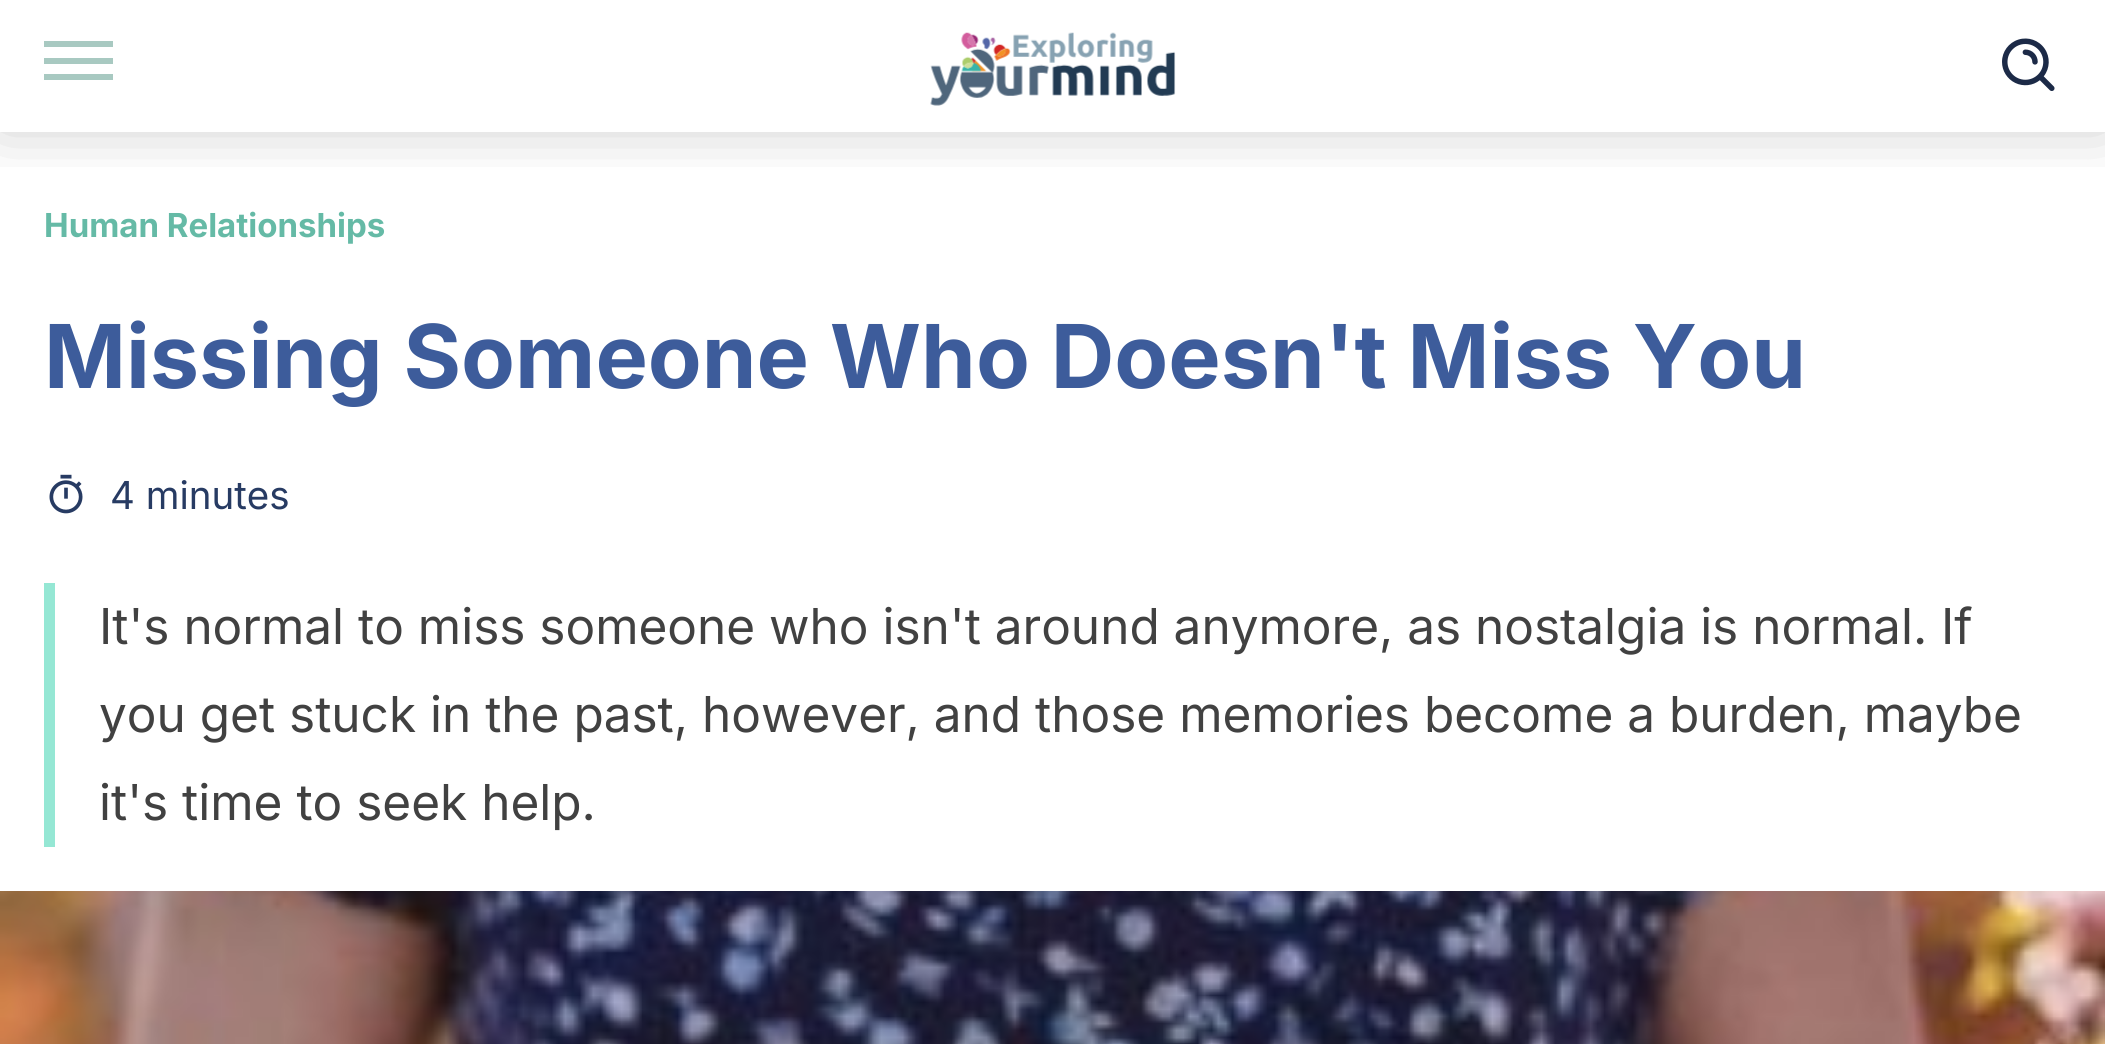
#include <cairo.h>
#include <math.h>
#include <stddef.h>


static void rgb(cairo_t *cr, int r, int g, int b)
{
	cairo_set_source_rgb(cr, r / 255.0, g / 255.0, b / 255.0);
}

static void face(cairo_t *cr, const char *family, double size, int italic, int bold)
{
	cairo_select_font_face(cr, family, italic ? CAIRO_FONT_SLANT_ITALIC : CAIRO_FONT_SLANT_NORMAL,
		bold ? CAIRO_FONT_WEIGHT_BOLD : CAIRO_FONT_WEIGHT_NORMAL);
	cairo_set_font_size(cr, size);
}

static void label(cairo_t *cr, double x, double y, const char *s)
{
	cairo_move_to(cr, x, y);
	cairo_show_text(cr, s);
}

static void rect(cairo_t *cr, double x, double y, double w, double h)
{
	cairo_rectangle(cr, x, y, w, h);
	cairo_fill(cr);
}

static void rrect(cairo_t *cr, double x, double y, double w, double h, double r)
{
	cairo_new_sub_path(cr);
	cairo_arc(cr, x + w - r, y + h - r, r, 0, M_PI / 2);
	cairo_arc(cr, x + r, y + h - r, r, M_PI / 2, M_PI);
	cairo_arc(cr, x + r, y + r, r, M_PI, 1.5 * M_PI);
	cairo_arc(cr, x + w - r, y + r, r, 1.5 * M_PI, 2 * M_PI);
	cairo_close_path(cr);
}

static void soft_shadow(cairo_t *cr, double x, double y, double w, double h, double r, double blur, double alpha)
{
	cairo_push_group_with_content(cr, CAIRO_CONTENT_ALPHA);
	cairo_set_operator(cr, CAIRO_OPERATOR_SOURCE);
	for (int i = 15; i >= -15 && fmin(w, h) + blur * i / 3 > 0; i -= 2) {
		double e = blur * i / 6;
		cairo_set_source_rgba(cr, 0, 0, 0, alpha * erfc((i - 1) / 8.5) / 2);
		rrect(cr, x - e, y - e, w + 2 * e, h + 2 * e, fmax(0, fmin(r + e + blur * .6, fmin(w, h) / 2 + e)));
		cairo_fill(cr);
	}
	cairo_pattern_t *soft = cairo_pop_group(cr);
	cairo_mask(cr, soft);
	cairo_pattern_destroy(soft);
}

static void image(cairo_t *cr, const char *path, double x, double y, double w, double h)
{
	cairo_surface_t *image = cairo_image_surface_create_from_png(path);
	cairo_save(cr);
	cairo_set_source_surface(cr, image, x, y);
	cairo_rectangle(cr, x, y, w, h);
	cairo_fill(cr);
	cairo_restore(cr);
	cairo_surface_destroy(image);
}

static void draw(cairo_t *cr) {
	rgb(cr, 255, 255, 255);
	cairo_paint(cr);
	cairo_save(cr);
	cairo_rectangle(cr, 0, 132, 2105, 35);
	cairo_clip(cr);
	rgb(cr, 0, 0, 0);
	soft_shadow(cr, 0, -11, 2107, 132, 0, 33, 0.25);
	cairo_restore(cr);
	rgb(cr, 168, 201, 193);
	rect(cr, 44, 41, 69, 6);
	rect(cr, 44, 58, 69, 6);
	rect(cr, 44, 74, 69, 6);
	image(cr, "image0.png", 930, 32, 246, 74);
	image(cr, "image1.png", 2002, 38, 53, 53);
	face(cr, "Inter", 33, 0, 1);
	rgb(cr, 101, 186, 166);
	label(cr, 44, 237, "Human Relationships");
	face(cr, "Inter", 88, 0, 1);
	rgb(cr, 61, 92, 155);
	label(cr, 44, 388, "Missing Someone Who Doesn't Miss You");
	image(cr, "image2.png", 49, 474, 34, 40);
	face(cr, "Inter", 38.5, 0, 0);
	rgb(cr, 39, 59, 99);
	label(cr, 110, 509, "4 minutes");
	rgb(cr, 149, 231, 212);
	rect(cr, 44, 583, 11, 264);
	face(cr, "Inter", 49.5, 0, 0);
	rgb(cr, 65, 65, 65);
	label(cr, 99, 644, "It's normal to miss someone who isn't around anymore, as nostalgia is normal. If");
	label(cr, 99, 732, "you get stuck in the past, however, and those memories become a burden, maybe");
	label(cr, 99, 820, "it's time to seek help.");
	image(cr, "image3.png", 0, 891, 2105, 153);
}

int main(void) {
	cairo_surface_t *surface = cairo_image_surface_create(CAIRO_FORMAT_RGB24, 2105, 1044);
	cairo_t *cr = cairo_create(surface);
	cairo_font_options_t *options = cairo_font_options_create();
	cairo_font_options_set_hint_metrics(options, CAIRO_HINT_METRICS_OFF);
	cairo_font_options_set_hint_style(options, CAIRO_HINT_STYLE_NONE);
	cairo_set_font_options(cr, options);
	cairo_set_miter_limit(cr, 4);
	draw(cr);
	cairo_surface_write_to_png(surface, "render.png");
	cairo_font_options_destroy(options);
	cairo_destroy(cr);
	cairo_surface_destroy(surface);
	return 0;
}
